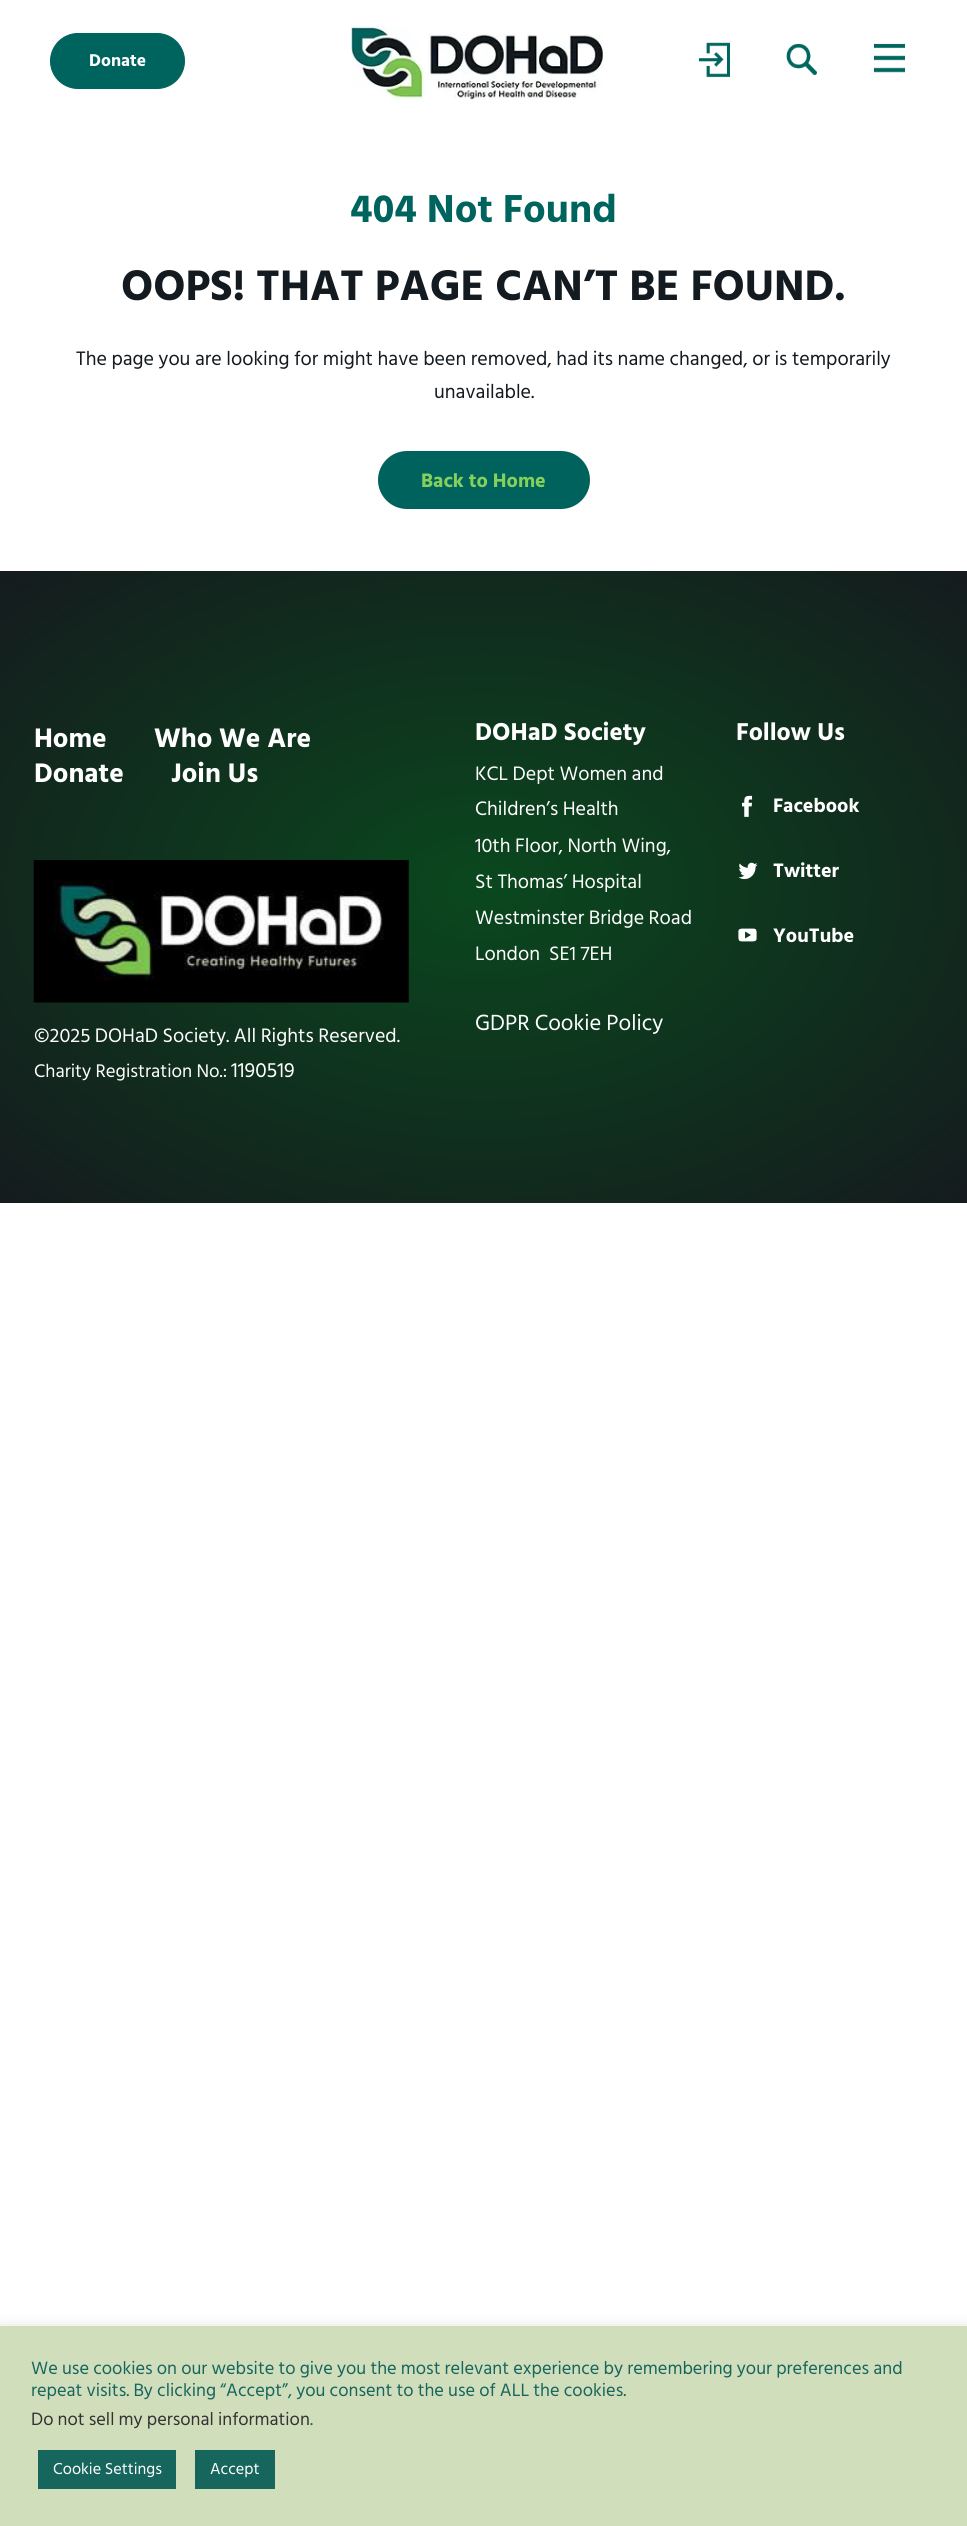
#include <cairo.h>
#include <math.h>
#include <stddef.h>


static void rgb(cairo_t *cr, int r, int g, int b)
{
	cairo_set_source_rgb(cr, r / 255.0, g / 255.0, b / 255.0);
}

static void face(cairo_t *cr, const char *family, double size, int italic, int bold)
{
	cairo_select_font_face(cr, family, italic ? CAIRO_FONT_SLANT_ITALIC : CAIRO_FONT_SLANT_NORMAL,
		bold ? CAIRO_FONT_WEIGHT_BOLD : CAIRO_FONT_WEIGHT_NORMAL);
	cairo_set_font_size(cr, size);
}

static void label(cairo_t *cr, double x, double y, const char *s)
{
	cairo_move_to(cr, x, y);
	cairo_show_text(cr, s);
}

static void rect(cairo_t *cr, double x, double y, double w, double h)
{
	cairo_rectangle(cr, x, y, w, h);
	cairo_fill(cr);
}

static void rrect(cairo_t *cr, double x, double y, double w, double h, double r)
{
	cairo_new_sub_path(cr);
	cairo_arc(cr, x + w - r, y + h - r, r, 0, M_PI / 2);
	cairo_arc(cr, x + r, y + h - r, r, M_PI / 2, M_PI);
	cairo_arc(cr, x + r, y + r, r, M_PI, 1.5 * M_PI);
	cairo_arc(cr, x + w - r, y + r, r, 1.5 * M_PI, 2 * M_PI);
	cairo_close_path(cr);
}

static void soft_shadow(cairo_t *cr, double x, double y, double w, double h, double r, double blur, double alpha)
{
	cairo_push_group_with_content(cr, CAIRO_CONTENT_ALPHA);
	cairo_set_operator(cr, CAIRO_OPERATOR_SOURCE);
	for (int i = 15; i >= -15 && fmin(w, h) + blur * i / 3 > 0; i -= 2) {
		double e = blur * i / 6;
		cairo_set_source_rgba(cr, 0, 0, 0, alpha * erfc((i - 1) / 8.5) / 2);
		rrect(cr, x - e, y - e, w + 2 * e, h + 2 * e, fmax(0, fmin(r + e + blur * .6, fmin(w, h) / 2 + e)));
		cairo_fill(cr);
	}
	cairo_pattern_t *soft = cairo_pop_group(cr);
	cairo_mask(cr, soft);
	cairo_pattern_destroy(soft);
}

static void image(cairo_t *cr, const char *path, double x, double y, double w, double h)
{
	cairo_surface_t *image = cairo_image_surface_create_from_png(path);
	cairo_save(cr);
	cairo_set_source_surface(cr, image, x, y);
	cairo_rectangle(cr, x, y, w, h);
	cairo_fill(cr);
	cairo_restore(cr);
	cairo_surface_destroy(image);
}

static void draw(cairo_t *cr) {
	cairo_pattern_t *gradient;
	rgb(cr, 255, 255, 255);
	cairo_paint(cr);
	rgb(cr, 0, 100, 94);
	rrect(cr, 50.5, 33.5, 134, 55, 27.5);
	cairo_fill_preserve(cr);
	cairo_set_line_width(cr, 1);
	cairo_stroke(cr);
	face(cr, "Hind Siliguri", 17.5, 0, 1);
	rgb(cr, 255, 255, 255);
	label(cr, 89, 66, "Donate");
	image(cr, "image0.png", 351, 26, 253, 74);
	image(cr, "image1.png", 698, 42, 32, 36);
	image(cr, "image2.png", 786, 43, 31, 32);
	image(cr, "image3.png", 873, 43, 32, 30);
	face(cr, "Hind Siliguri", 40, 0, 1);
	rgb(cr, 0, 100, 94);
	label(cr, 350, 222, "404 Not Found");
	face(cr, "Hind Siliguri", 43.75, 0, 1);
	rgb(cr, 19, 26, 32);
	label(cr, 121, 300, "OOPS! THAT PAGE CAN’T BE FOUND.");
	face(cr, "Hind Siliguri", 20, 0, 0);
	label(cr, 76, 365, "The page you are looking for might have been removed, had its name changed, or is temporarily");
	label(cr, 434, 398, "unavailable.");
	rgb(cr, 0, 98, 92);
	rrect(cr, 378, 451, 212, 58, 29);
	cairo_fill(cr);
	face(cr, "Hind Siliguri", 20, 0, 1);
	rgb(cr, 133, 208, 92);
	label(cr, 421, 487, "Back to Home");
	gradient = cairo_pattern_create_radial(0, 0, 0, 0, 0, 1);
	cairo_pattern_set_matrix(gradient, &(cairo_matrix_t){1.0 / 684, 0, 0, 1.0 / 446, -1.0 * 484 / 684, -1.0 * 887 / 446});
	cairo_pattern_add_color_stop_rgba(gradient, 0, 0.039, 0.282, 0.118, 1);
	cairo_pattern_add_color_stop_rgba(gradient, 1, 0.082, 0.106, 0.118, 1);
	cairo_set_source(cr, gradient);
	cairo_pattern_destroy(gradient);
	rect(cr, 0, 571, 967, 632);
	face(cr, "Hind Siliguri", 27.5, 0, 1);
	rgb(cr, 255, 255, 255);
	label(cr, 34, 747, "Home");
	label(cr, 154, 747, "Who We Are");
	label(cr, 34, 782, "Donate");
	label(cr, 171, 782, "Join Us");
	image(cr, "image4.png", 33, 860, 376, 143);
	face(cr, "Hind Siliguri", 20, 0, 0);
	label(cr, 34, 1042, "©2025 DOHaD Society. All Rights Reserved.");
	face(cr, "Hind Siliguri", 18.75, 0, 0);
	label(cr, 34, 1077, "Charity Registration No.:");
	face(cr, "Hind Siliguri", 21, 0, 0);
	label(cr, 231, 1077, "1190519");
	face(cr, "Hind Siliguri", 25, 0, 1);
	label(cr, 475, 740, "DOHaD Society");
	face(cr, "Hind Siliguri", 20, 0, 0);
	label(cr, 475, 780, "KCL Dept Women and");
	label(cr, 475, 815, "Children’s Health");
	label(cr, 475, 852, "10th Floor, North Wing,");
	label(cr, 475, 888, "St Thomas’ Hospital");
	label(cr, 475, 924, "Westminster Bridge Road");
	label(cr, 475, 960, "London  SE1 7EH");
	face(cr, "Hind Siliguri", 22.5, 0, 0);
	label(cr, 475, 1030, "GDPR Cookie Policy");
	face(cr, "Hind Siliguri", 25, 0, 1);
	label(cr, 736, 740, "Follow Us");
	image(cr, "image5.png", 742, 795, 11, 22);
	face(cr, "Hind Siliguri", 20, 0, 1);
	label(cr, 773, 812, "Facebook");
	image(cr, "image6.png", 738, 862, 20, 18);
	label(cr, 773, 877, "Twitter");
	image(cr, "image7.png", 738, 928, 19, 14);
	label(cr, 773, 942, "YouTube");
	rgb(cr, 172, 171, 171);
	soft_shadow(cr, 0, 2325, 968, 200, 0, 6, 0.3);
	rgb(cr, 209, 222, 188);
	rect(cr, 0, 2326, 967, 200);
	face(cr, "Hind Siliguri", 18.35, 0, 0);
	rgb(cr, 22, 102, 94);
	label(cr, 31, 2374, "We use cookies on our website to give you the most relevant experience by remembering your preferences and");
	label(cr, 31, 2396, "repeat visits. By clicking “Accept”, you consent to the use of ALL the cookies.");
	rgb(cr, 51, 51, 51);
	label(cr, 31, 2425, "Do not sell my personal information");
	rgb(cr, 22, 102, 94);
	label(cr, 310, 2425, ".");
	rect(cr, 38, 2450, 138, 39);
	face(cr, "Hind Siliguri", 16.25, 0, 0);
	rgb(cr, 255, 255, 255);
	label(cr, 53, 2474, "Cookie Settings");
	rgb(cr, 22, 102, 94);
	rect(cr, 195, 2450, 80, 39);
	rgb(cr, 255, 255, 255);
	label(cr, 210, 2474, "Accept");
}

int main(void) {
	cairo_surface_t *surface = cairo_image_surface_create(CAIRO_FORMAT_RGB24, 967, 2526);
	cairo_t *cr = cairo_create(surface);
	cairo_font_options_t *options = cairo_font_options_create();
	cairo_font_options_set_hint_metrics(options, CAIRO_HINT_METRICS_OFF);
	cairo_font_options_set_hint_style(options, CAIRO_HINT_STYLE_NONE);
	cairo_set_font_options(cr, options);
	cairo_set_miter_limit(cr, 4);
	draw(cr);
	cairo_surface_write_to_png(surface, "render.png");
	cairo_font_options_destroy(options);
	cairo_destroy(cr);
	cairo_surface_destroy(surface);
	return 0;
}
